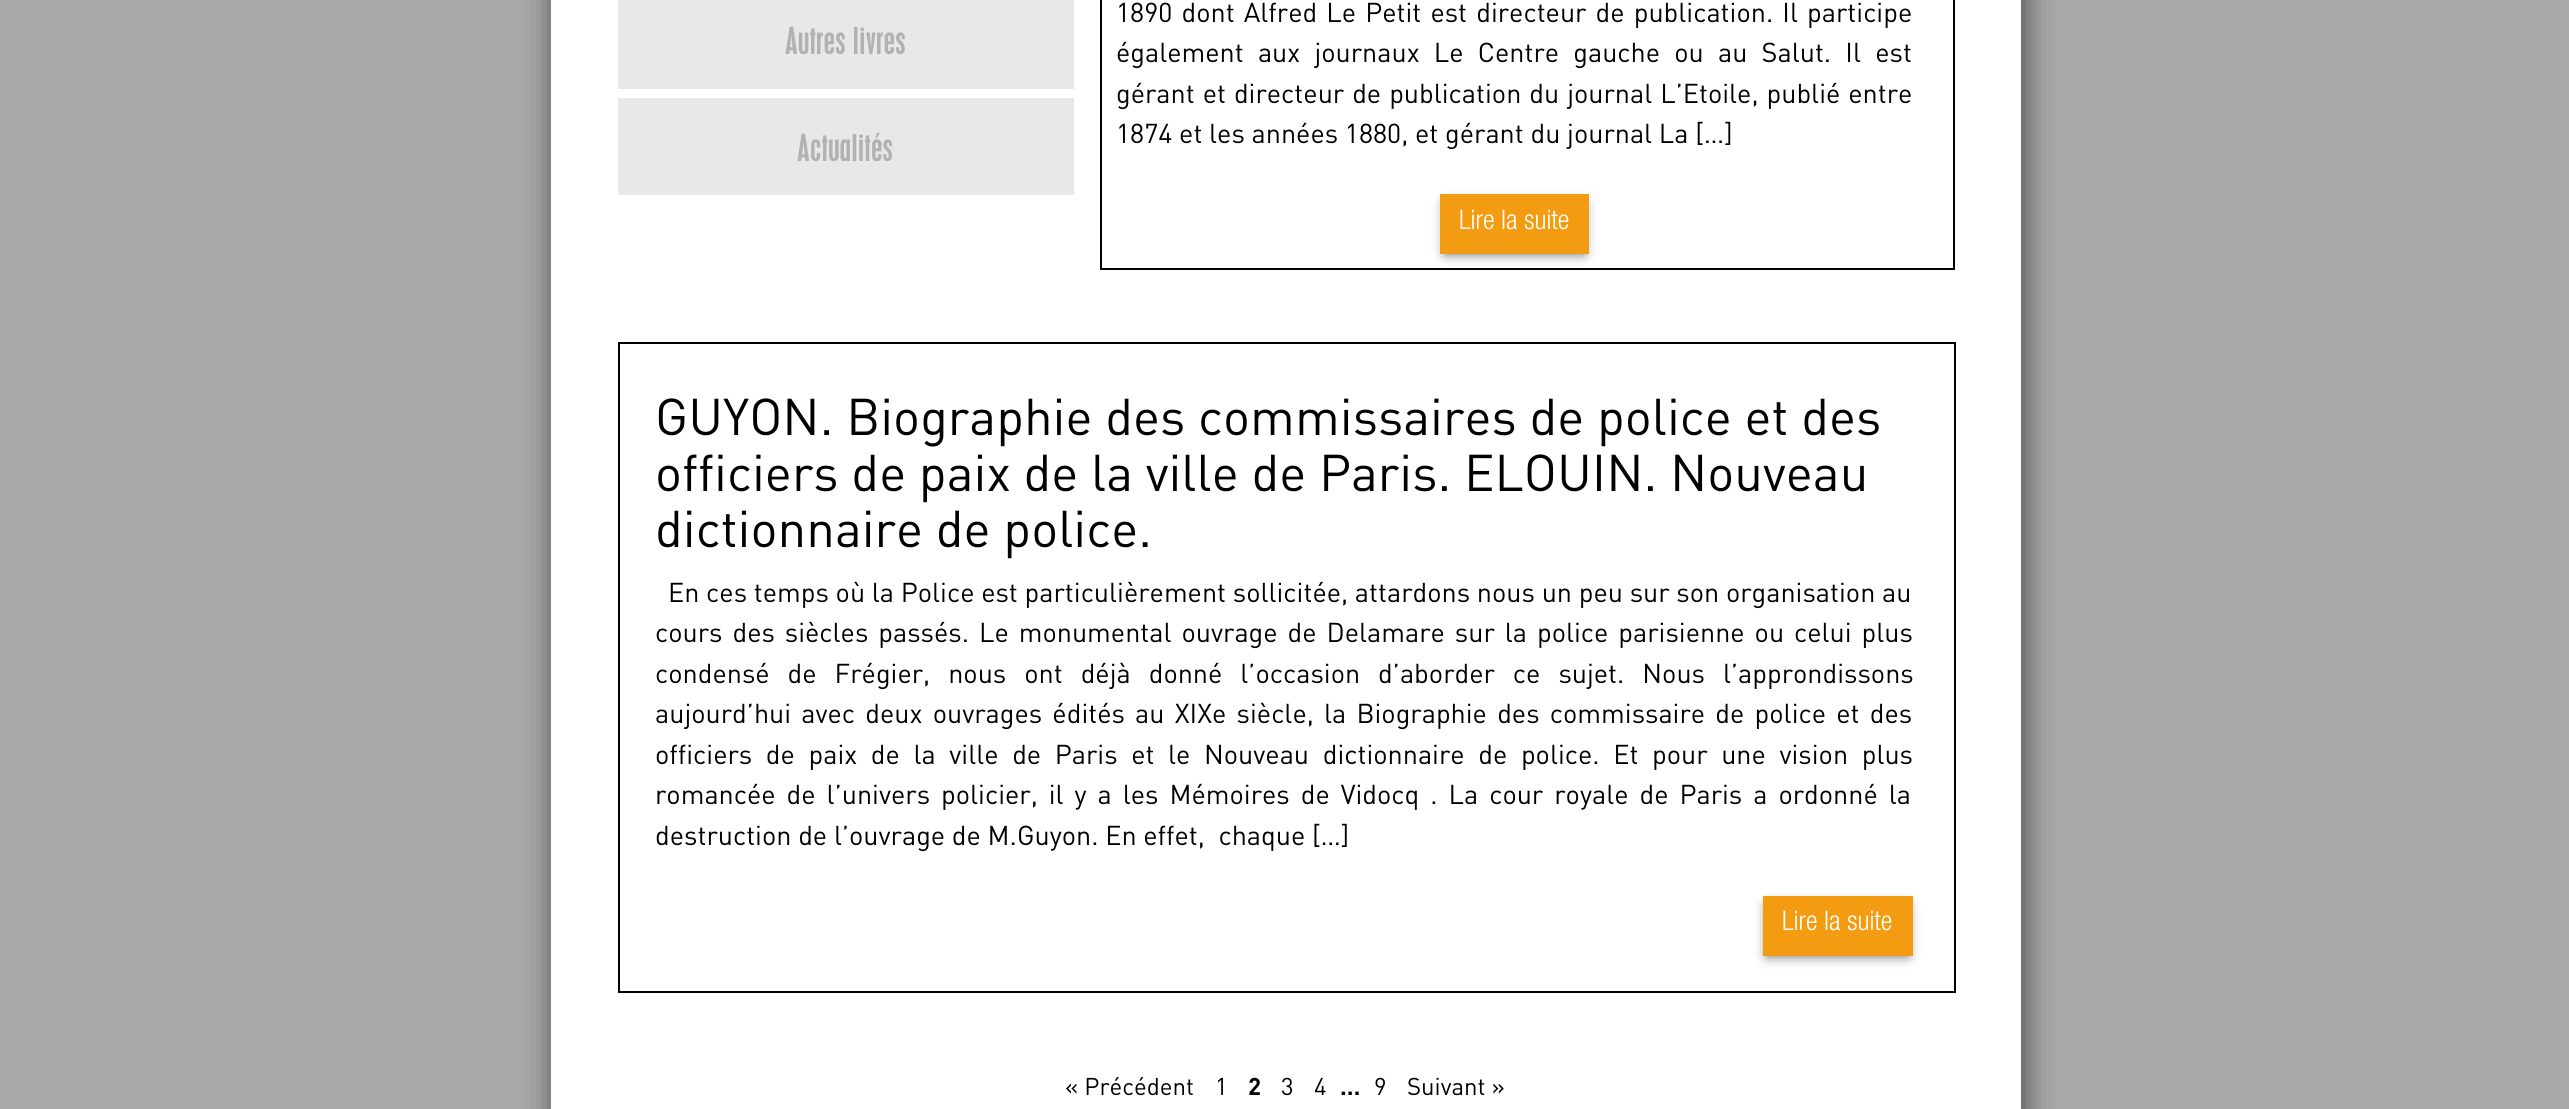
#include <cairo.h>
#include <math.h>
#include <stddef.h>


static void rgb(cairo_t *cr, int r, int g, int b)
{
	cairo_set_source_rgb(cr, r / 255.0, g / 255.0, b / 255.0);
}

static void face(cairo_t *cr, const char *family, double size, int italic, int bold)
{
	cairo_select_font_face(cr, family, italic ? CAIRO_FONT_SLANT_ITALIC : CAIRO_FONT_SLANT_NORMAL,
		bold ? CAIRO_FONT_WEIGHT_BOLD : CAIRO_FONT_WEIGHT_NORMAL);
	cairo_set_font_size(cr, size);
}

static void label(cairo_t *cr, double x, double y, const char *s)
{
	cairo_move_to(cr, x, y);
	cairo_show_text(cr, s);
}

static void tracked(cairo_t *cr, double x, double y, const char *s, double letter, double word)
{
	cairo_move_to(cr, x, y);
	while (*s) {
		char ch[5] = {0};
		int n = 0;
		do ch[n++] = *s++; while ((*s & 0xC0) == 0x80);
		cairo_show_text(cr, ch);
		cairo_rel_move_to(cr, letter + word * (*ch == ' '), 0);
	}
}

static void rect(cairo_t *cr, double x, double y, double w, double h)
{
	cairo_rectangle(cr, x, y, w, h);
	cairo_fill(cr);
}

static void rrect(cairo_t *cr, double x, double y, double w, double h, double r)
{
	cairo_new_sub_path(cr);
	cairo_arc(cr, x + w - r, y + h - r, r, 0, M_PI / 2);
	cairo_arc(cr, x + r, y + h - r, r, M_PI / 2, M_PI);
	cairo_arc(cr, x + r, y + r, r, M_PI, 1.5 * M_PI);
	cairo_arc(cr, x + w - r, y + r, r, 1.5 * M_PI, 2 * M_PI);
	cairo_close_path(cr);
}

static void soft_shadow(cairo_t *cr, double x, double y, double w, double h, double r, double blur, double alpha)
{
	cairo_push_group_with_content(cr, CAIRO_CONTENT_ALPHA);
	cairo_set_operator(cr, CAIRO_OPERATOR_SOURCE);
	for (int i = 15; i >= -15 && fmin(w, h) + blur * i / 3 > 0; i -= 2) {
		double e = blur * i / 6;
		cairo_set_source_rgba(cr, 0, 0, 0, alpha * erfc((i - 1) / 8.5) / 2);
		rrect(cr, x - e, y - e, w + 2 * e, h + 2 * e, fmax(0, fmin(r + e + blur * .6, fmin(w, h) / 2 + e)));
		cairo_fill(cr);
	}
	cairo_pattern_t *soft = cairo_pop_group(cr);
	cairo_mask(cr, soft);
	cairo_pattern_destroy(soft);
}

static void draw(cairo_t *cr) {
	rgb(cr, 168, 168, 168);
	cairo_paint(cr);
	rgb(cr, 0, 0, 0);
	soft_shadow(cr, 554, -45, 1470, 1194, 0, 15, 0.6);
	rgb(cr, 255, 255, 255);
	rect(cr, 551, 0, 1470, 1109);
	rgb(cr, 232, 232, 232);
	rect(cr, 618, 0, 456, 89);
	face(cr, "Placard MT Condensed", 33, 0, 0);
	rgb(cr, 178, 178, 178);
	label(cr, 785, 54, "Autres livres");
	rgb(cr, 232, 232, 232);
	rect(cr, 618, 98, 456, 97);
	rgb(cr, 178, 178, 178);
	label(cr, 797, 161, "Actualités");
	cairo_rectangle(cr, 1101, -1, 853, 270);
	rgb(cr, 0, 0, 0);
	cairo_stroke(cr);
	face(cr, "DIN", 27, 0, 0);
	tracked(cr, 1116, 22, "1890 dont Alfred Le Petit est directeur de publication. Il participe", 0, 2.4);
	tracked(cr, 1116, 62, "également aux journaux Le Centre gauche ou au Salut. Il est", 0, 7.5);
	tracked(cr, 1116, 103, "gérant et directeur de publication du journal L’Etoile, publié entre", 0, 1.25);
	label(cr, 1116, 143, "1874 et les années 1880, et gérant du journal La […]");
	rgb(cr, 0, 0, 0);
	soft_shadow(cr, 1445, 203, 139, 51, 0, 6, 0.6);
	rgb(cr, 243, 156, 18);
	rect(cr, 1440, 194, 149, 60);
	face(cr, "Helvetica Neue Light", 27, 0, 0);
	rgb(cr, 255, 255, 255);
	label(cr, 1459, 229, "Lire la suite");
	cairo_rectangle(cr, 619, 343, 1336, 649);
	rgb(cr, 0, 0, 0);
	cairo_stroke(cr);
	face(cr, "DIN", 51, 0, 0);
	label(cr, 655, 435, "GUYON. Biographie des commissaires de police et des");
	label(cr, 655, 491, "officiers de paix de la ville de Paris. ELOUIN. Nouveau");
	label(cr, 655, 547, "dictionnaire de police.");
	face(cr, "DIN", 27, 0, 0);
	label(cr, 668, 602, "En ces temps où la Police est particulièrement sollicitée, attardons nous un peu sur son organisation au");
	tracked(cr, 655, 642, "cours des siècles passés. Le monumental ouvrage de Delamare sur la police parisienne ou celui plus", 0, 3.25);
	tracked(cr, 655, 683, "condensé de Frégier, nous ont déjà donné l’occasion d’aborder ce sujet. Nous l’approndissons", 0, 11.25);
	tracked(cr, 655, 723, "aujourd’hui avec deux ouvrages édités au XIXe siècle, la Biographie des commissaire de police et des", 0, 3.5);
	tracked(cr, 655, 764, "officiers de paix de la ville de Paris et le Nouveau dictionnaire de police. Et pour une vision plus", 0, 6.9);
	tracked(cr, 655, 804, "romancée de l’univers policier, il y a les Mémoires de Vidocq . La cour royale de Paris a ordonné la", 0, 4.25);
	label(cr, 655, 845, "destruction de l’ouvrage de M.Guyon. En effet,  chaque […]");
	rgb(cr, 0, 0, 0);
	soft_shadow(cr, 1767, 905, 141, 51, 0, 6, 0.6);
	rgb(cr, 243, 156, 18);
	rect(cr, 1763, 896, 150, 60);
	face(cr, "Helvetica Neue Light", 27, 0, 0);
	rgb(cr, 255, 255, 255);
	label(cr, 1782, 930, "Lire la suite");
	face(cr, "DIN", 24, 0, 0);
	rgb(cr, 0, 0, 0);
	label(cr, 1065, 1095, "« Précédent");
	label(cr, 1215, 1095, "1");
	face(cr, "DIN", 24, 0, 1);
	label(cr, 1248, 1095, "2");
	face(cr, "DIN", 24, 0, 0);
	label(cr, 1281, 1095, "3");
	label(cr, 1314, 1095, "4");
	face(cr, "DIN", 24, 0, 1);
	label(cr, 1340, 1095, "…");
	face(cr, "DIN", 24, 0, 0);
	label(cr, 1374, 1095, "9");
	label(cr, 1407, 1095, "Suivant »");
}

int main(void) {
	cairo_surface_t *surface = cairo_image_surface_create(CAIRO_FORMAT_RGB24, 2569, 1109);
	cairo_t *cr = cairo_create(surface);
	cairo_font_options_t *options = cairo_font_options_create();
	cairo_font_options_set_hint_metrics(options, CAIRO_HINT_METRICS_OFF);
	cairo_font_options_set_hint_style(options, CAIRO_HINT_STYLE_NONE);
	cairo_set_font_options(cr, options);
	cairo_set_miter_limit(cr, 4);
	draw(cr);
	cairo_surface_write_to_png(surface, "render.png");
	cairo_font_options_destroy(options);
	cairo_destroy(cr);
	cairo_surface_destroy(surface);
	return 0;
}
